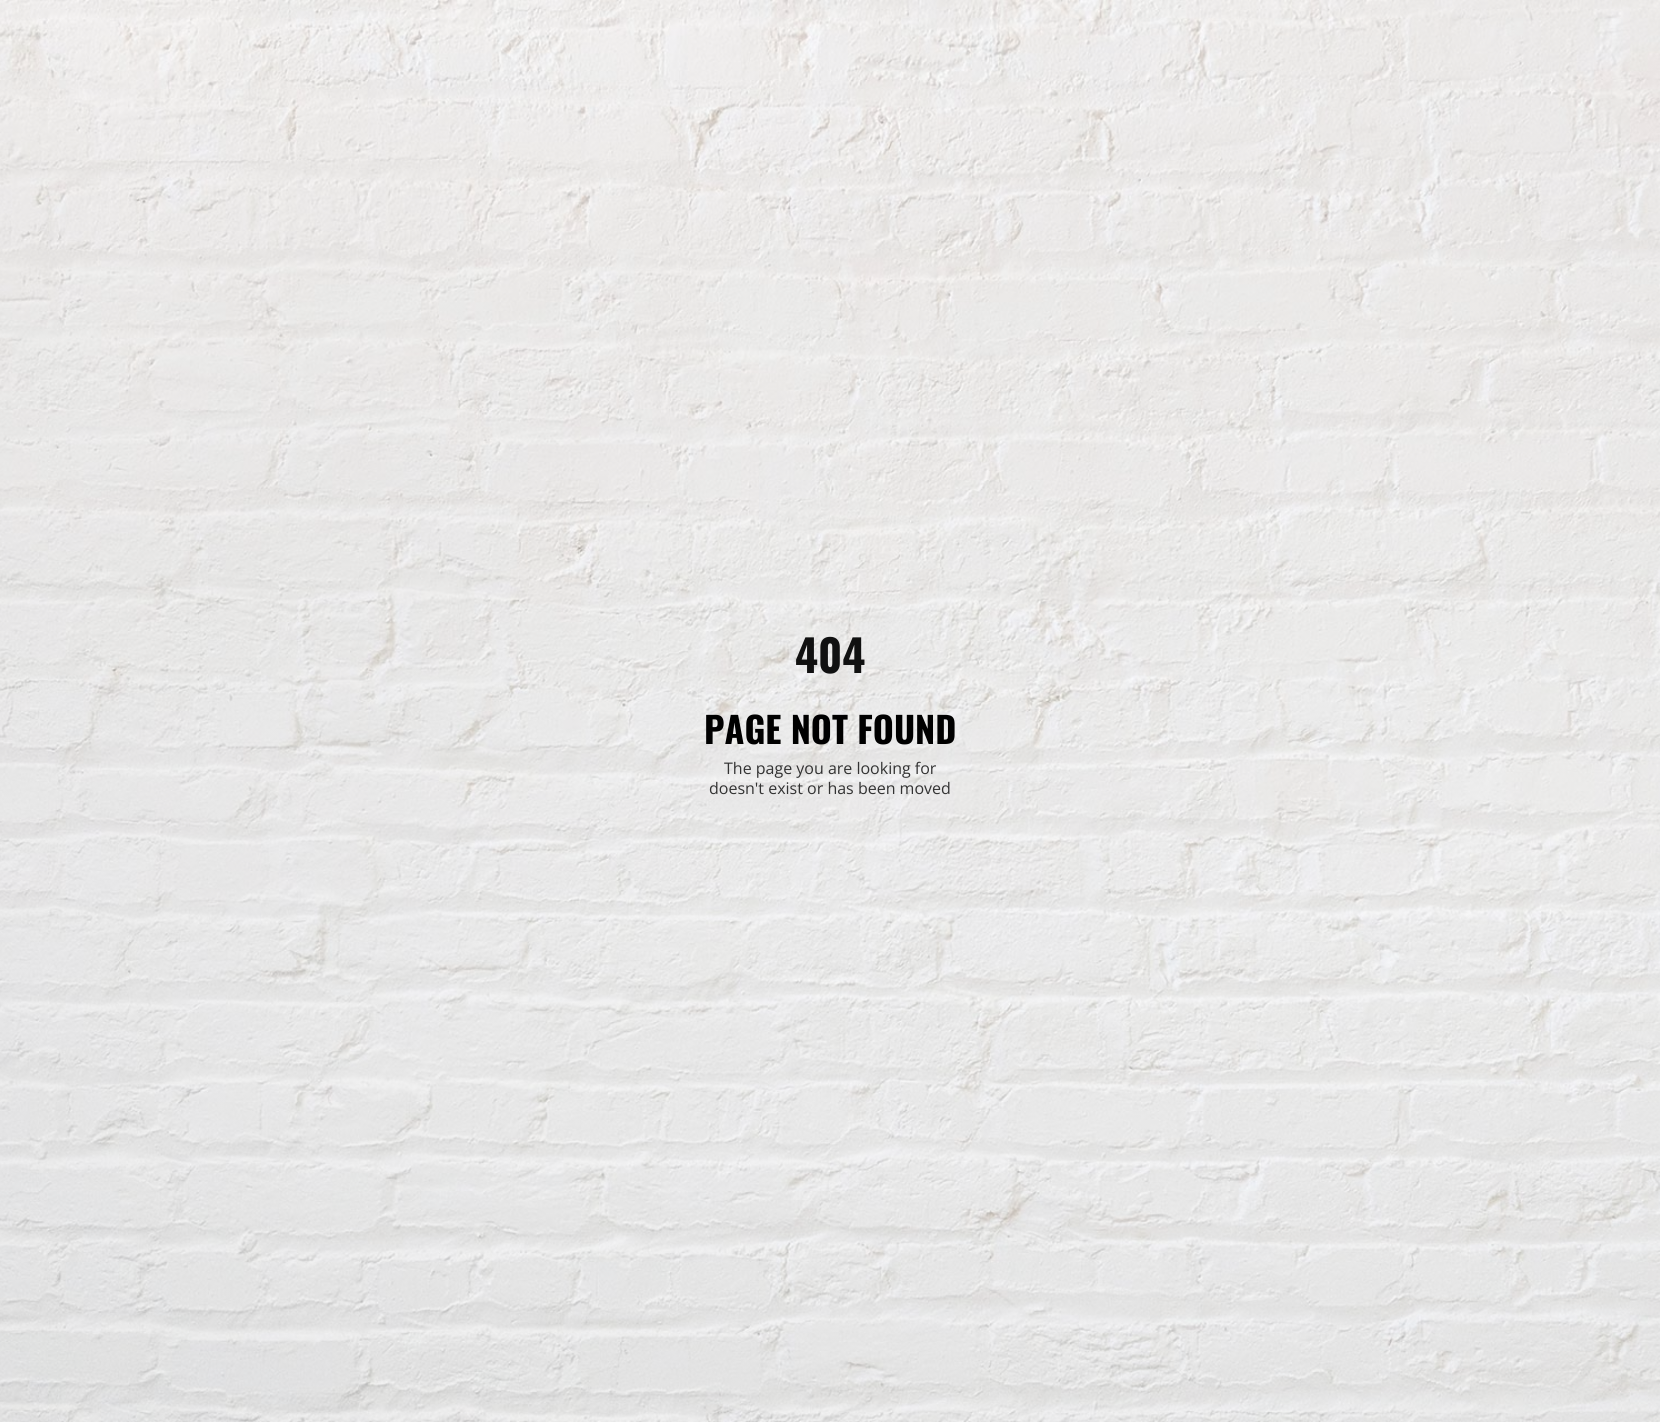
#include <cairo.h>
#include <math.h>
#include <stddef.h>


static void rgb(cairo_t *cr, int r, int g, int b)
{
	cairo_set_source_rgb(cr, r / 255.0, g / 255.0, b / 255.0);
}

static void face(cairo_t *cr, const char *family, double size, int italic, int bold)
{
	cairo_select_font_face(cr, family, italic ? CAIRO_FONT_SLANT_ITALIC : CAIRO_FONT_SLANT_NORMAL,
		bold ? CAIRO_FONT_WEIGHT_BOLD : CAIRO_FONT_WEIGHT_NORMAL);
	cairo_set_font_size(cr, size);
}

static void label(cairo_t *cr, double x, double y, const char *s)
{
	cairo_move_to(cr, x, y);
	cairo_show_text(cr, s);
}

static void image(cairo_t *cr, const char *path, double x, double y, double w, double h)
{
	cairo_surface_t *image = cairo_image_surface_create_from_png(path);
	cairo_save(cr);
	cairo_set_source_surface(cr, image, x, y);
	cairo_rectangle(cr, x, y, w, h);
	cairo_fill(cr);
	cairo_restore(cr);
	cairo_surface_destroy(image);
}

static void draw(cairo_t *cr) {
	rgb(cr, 255, 255, 255);
	cairo_paint(cr);
	image(cr, "image0.png", 0, 0, 1660, 1422);
	face(cr, "Oswald", 44, 0, 1);
	rgb(cr, 17, 17, 17);
	label(cr, 795, 673, "404");
	face(cr, "Oswald", 36, 0, 1);
	rgb(cr, 0, 0, 0);
	label(cr, 704, 744, "PAGE NOT FOUND");
	face(cr, "Open Sans", 16, 0, 0);
	rgb(cr, 51, 51, 51);
	label(cr, 724, 774, "The page you are looking for");
	label(cr, 709, 794, "doesn't exist or has been moved");
}

int main(void) {
	cairo_surface_t *surface = cairo_image_surface_create(CAIRO_FORMAT_RGB24, 1660, 1422);
	cairo_t *cr = cairo_create(surface);
	cairo_font_options_t *options = cairo_font_options_create();
	cairo_font_options_set_hint_metrics(options, CAIRO_HINT_METRICS_OFF);
	cairo_font_options_set_hint_style(options, CAIRO_HINT_STYLE_NONE);
	cairo_set_font_options(cr, options);
	cairo_set_miter_limit(cr, 4);
	draw(cr);
	cairo_surface_write_to_png(surface, "render.png");
	cairo_font_options_destroy(options);
	cairo_destroy(cr);
	cairo_surface_destroy(surface);
	return 0;
}
